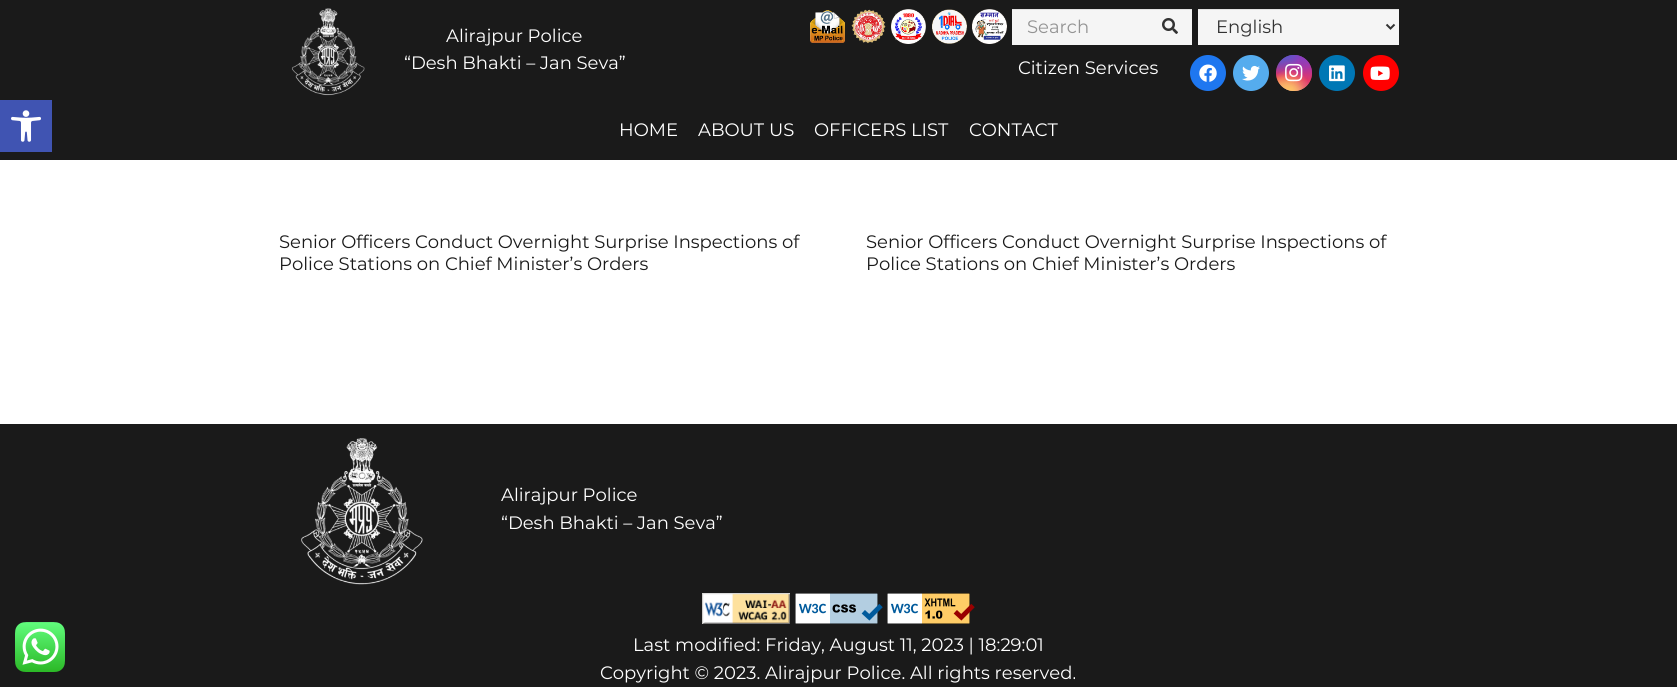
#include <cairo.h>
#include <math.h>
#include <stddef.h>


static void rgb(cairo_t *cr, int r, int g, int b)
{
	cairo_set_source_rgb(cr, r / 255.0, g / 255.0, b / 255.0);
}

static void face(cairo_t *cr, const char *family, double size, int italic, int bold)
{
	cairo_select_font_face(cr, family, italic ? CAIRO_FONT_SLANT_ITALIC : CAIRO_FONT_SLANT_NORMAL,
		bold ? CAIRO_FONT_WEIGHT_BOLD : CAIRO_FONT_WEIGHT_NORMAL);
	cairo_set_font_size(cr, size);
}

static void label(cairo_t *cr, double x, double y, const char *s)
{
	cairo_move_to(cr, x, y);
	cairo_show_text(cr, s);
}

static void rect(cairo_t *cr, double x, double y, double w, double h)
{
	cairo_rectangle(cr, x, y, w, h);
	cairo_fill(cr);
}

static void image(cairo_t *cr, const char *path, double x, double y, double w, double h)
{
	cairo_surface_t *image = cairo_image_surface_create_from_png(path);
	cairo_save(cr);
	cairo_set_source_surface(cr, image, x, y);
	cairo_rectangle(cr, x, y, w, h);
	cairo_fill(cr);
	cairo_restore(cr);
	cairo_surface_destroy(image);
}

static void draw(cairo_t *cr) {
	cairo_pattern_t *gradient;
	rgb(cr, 255, 255, 255);
	cairo_paint(cr);
	rgb(cr, 26, 26, 26);
	rect(cr, 0, 0, 1677, 160);
	rgb(cr, 64, 84, 178);
	rect(cr, 0, 100, 52, 52);
	image(cr, "image0.png", 11, 110, 30, 32);
	image(cr, "image1.png", 291, 8, 74, 88);
	face(cr, "Montserrat", 18, 0, 0);
	rgb(cr, 255, 255, 255);
	label(cr, 446, 42, "Alirajpur Police");
	label(cr, 404, 69, "“Desh Bhakti – Jan Seva”");
	image(cr, "image2.png", 810, 10, 35, 33);
	image(cr, "image3.png", 851, 9, 35, 35);
	image(cr, "image4.png", 891, 9, 35, 35);
	image(cr, "image5.png", 932, 9, 35, 35);
	image(cr, "image6.png", 972, 9, 35, 35);
	rgb(cr, 245, 245, 245);
	rect(cr, 1012, 10, 180, 35);
	rgb(cr, 225, 225, 225);
	rect(cr, 1012, 9, 180, 1);
	rgb(cr, 148, 148, 148);
	label(cr, 1027, 33, "Search");
	image(cr, "image7.png", 1162, 18, 16, 16);
	rgb(cr, 245, 245, 245);
	rect(cr, 1198, 10, 201, 35);
	rgb(cr, 225, 225, 225);
	rect(cr, 1198, 9, 201, 1);
	cairo_new_path(cr);
	cairo_move_to(cr, 1386.5, 24.5);
	cairo_line_to(cr, 1390.5, 28.5);
	cairo_line_to(cr, 1394.5, 24.5);
	rgb(cr, 51, 51, 51);
	cairo_stroke(cr);
	label(cr, 1216, 33, "English");
	rgb(cr, 255, 255, 255);
	label(cr, 1018, 74, "Citizen Services");
	rgb(cr, 30, 119, 240);
	cairo_new_path(cr);
	cairo_arc(cr, 1208, 73, 18, 0, 2 * M_PI);
	cairo_fill(cr);
	image(cr, "image8.png", 1199, 64, 18, 18);
	rgb(cr, 85, 172, 238);
	cairo_arc(cr, 1251, 73, 18, 0, 2 * M_PI);
	cairo_fill(cr);
	image(cr, "image9.png", 1242, 65, 18, 16);
	gradient = cairo_pattern_create_linear(1294, 55, 1294, 91);
	cairo_pattern_add_color_stop_rgba(gradient, 0, 0.396, 0.349, 0.792, 1);
	cairo_pattern_add_color_stop_rgba(gradient, 0.3, 0.737, 0.192, 0.561, 1);
	cairo_pattern_add_color_stop_rgba(gradient, 0.5, 0.894, 0.18, 0.4, 1);
	cairo_pattern_add_color_stop_rgba(gradient, 0.7, 0.98, 0.325, 0.196, 1);
	cairo_pattern_add_color_stop_rgba(gradient, 1, 1, 0.863, 0.502, 1);
	cairo_set_source(cr, gradient);
	cairo_pattern_destroy(gradient);
	cairo_arc(cr, 1294, 73, 18, 0, 2 * M_PI);
	cairo_fill(cr);
	gradient = cairo_pattern_create_radial(1312, 91, 0, 1312, 91, 51);
	cairo_pattern_add_color_stop_rgba(gradient, 0, 0.851, 0.192, 0.478, 1);
	cairo_pattern_add_color_stop_rgba(gradient, 1, 0.851, 0.192, 0.478, 0);
	cairo_set_source(cr, gradient);
	cairo_pattern_destroy(gradient);
	cairo_arc(cr, 1294, 73, 18, 0, 2 * M_PI);
	cairo_fill(cr);
	gradient = cairo_pattern_create_radial(0, 0, 0, 0, 0, 1);
	cairo_pattern_set_matrix(gradient, &(cairo_matrix_t){1.0 / 31, 0, 0, 1.0 / 61, -1.0 * 1298 / 31, -1.0 * 48 / 61});
	cairo_pattern_add_color_stop_rgba(gradient, 0, 0.537, 0.239, 0.761, 1);
	cairo_pattern_add_color_stop_rgba(gradient, 0.5, 0.537, 0.239, 0.761, 0);
	cairo_set_source(cr, gradient);
	cairo_pattern_destroy(gradient);
	cairo_arc(cr, 1294, 73, 18, 0, 2 * M_PI);
	cairo_fill(cr);
	gradient = cairo_pattern_create_radial(1312, 55, 0, 1312, 55, 51);
	cairo_pattern_add_color_stop_rgba(gradient, 0, 0.537, 0.239, 0.761, 1);
	cairo_pattern_add_color_stop_rgba(gradient, 0.5, 0.537, 0.239, 0.761, 0);
	cairo_set_source(cr, gradient);
	cairo_pattern_destroy(gradient);
	cairo_arc(cr, 1294, 73, 18, 0, 2 * M_PI);
	cairo_fill(cr);
	gradient = cairo_pattern_create_radial(0, 0, 0, 0, 0, 1);
	cairo_pattern_set_matrix(gradient, &(cairo_matrix_t){1.0 / 41, 0, 0, 1.0 / 76, -1.0 * 1283 / 41, -1.0 * 37 / 76});
	cairo_pattern_add_color_stop_rgba(gradient, 0, 0.322, 0.345, 0.812, 1);
	cairo_pattern_add_color_stop_rgba(gradient, 0.5, 0.322, 0.345, 0.812, 0);
	cairo_set_source(cr, gradient);
	cairo_pattern_destroy(gradient);
	cairo_arc(cr, 1294, 73, 18, 0, 2 * M_PI);
	cairo_fill(cr);
	gradient = cairo_pattern_create_radial(0, 0, 0, 0, 0, 1);
	cairo_pattern_set_matrix(gradient, &(cairo_matrix_t){1.0 / 51, 0, 0, 1.0 / 64, -1.0 * 1276 / 51, -1.0 * 46 / 64});
	cairo_pattern_add_color_stop_rgba(gradient, 0, 0.322, 0.345, 0.812, 1);
	cairo_pattern_add_color_stop_rgba(gradient, 0.5, 0.322, 0.345, 0.812, 0);
	cairo_set_source(cr, gradient);
	cairo_pattern_destroy(gradient);
	cairo_arc(cr, 1294, 73, 18, 0, 2 * M_PI);
	cairo_fill(cr);
	gradient = cairo_pattern_create_radial(1280, 105, 0, 1280, 105, 60);
	cairo_pattern_add_color_stop_rgba(gradient, 0, 0.996, 0.855, 0.494, 1);
	cairo_pattern_add_color_stop_rgba(gradient, 0.5, 0.996, 0.855, 0.494, 0);
	cairo_set_source(cr, gradient);
	cairo_pattern_destroy(gradient);
	cairo_arc(cr, 1294, 73, 18, 0, 2 * M_PI);
	cairo_fill(cr);
	gradient = cairo_pattern_create_radial(1289, 91, 0, 1289, 91, 43);
	cairo_pattern_add_color_stop_rgba(gradient, 0, 0.996, 0.773, 0.392, 1);
	cairo_pattern_add_color_stop_rgba(gradient, 0.5, 0.996, 0.773, 0.392, 0);
	cairo_set_source(cr, gradient);
	cairo_pattern_destroy(gradient);
	cairo_arc(cr, 1294, 73, 18, 0, 2 * M_PI);
	cairo_fill(cr);
	image(cr, "image10.png", 1285, 63, 18, 19);
	rgb(cr, 0, 119, 181);
	cairo_arc(cr, 1337, 73, 18, 0, 2 * M_PI);
	cairo_fill(cr);
	image(cr, "image11.png", 1329, 65, 16, 17);
	rgb(cr, 255, 0, 0);
	cairo_arc(cr, 1381, 73, 18, 0, 2 * M_PI);
	cairo_fill(cr);
	image(cr, "image12.png", 1370, 66, 20, 14);
	rgb(cr, 255, 255, 255);
	label(cr, 619, 136, "HOME");
	label(cr, 698, 136, "ABOUT US");
	label(cr, 814, 136, "OFFICERS LIST");
	label(cr, 969, 136, "CONTACT");
	rgb(cr, 26, 26, 26);
	label(cr, 279, 248, "Senior Officers Conduct Overnight Surprise Inspections of");
	label(cr, 279, 270, "Police Stations on Chief Minister’s Orders");
	label(cr, 866, 248, "Senior Officers Conduct Overnight Surprise Inspections of");
	label(cr, 866, 270, "Police Stations on Chief Minister’s Orders");
	rect(cr, 0, 424, 1677, 263);
	image(cr, "image13.png", 15, 622, 50, 50);
	image(cr, "image14.png", 301, 438, 122, 147);
	rgb(cr, 255, 255, 255);
	label(cr, 501, 501, "Alirajpur Police");
	label(cr, 501, 529, "“Desh Bhakti – Jan Seva”");
	image(cr, "image15.png", 702, 593, 88, 31);
	image(cr, "image16.png", 795, 593, 88, 31);
	image(cr, "image17.png", 887, 593, 88, 31);
	label(cr, 633, 651, "Last modified: Friday, August 11, 2023 | 18:29:01");
	label(cr, 600, 679, "Copyright © 2023. Alirajpur Police. All rights reserved.");
}

int main(void) {
	cairo_surface_t *surface = cairo_image_surface_create(CAIRO_FORMAT_RGB24, 1677, 687);
	cairo_t *cr = cairo_create(surface);
	cairo_font_options_t *options = cairo_font_options_create();
	cairo_font_options_set_hint_metrics(options, CAIRO_HINT_METRICS_OFF);
	cairo_font_options_set_hint_style(options, CAIRO_HINT_STYLE_NONE);
	cairo_set_font_options(cr, options);
	cairo_set_miter_limit(cr, 4);
	draw(cr);
	cairo_surface_write_to_png(surface, "render.png");
	cairo_font_options_destroy(options);
	cairo_destroy(cr);
	cairo_surface_destroy(surface);
	return 0;
}
